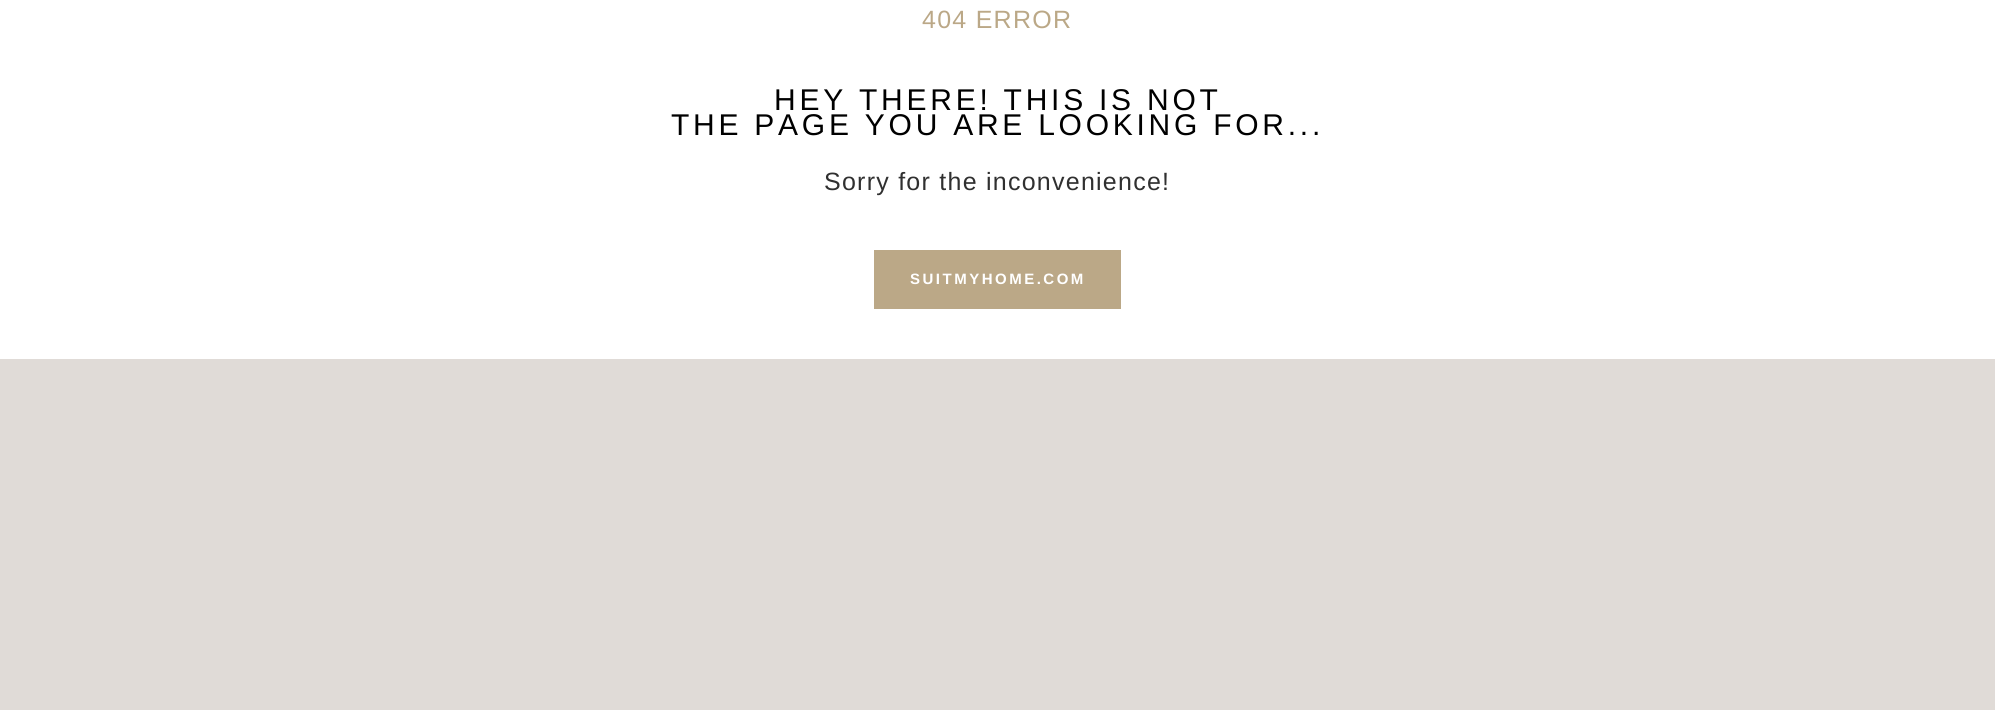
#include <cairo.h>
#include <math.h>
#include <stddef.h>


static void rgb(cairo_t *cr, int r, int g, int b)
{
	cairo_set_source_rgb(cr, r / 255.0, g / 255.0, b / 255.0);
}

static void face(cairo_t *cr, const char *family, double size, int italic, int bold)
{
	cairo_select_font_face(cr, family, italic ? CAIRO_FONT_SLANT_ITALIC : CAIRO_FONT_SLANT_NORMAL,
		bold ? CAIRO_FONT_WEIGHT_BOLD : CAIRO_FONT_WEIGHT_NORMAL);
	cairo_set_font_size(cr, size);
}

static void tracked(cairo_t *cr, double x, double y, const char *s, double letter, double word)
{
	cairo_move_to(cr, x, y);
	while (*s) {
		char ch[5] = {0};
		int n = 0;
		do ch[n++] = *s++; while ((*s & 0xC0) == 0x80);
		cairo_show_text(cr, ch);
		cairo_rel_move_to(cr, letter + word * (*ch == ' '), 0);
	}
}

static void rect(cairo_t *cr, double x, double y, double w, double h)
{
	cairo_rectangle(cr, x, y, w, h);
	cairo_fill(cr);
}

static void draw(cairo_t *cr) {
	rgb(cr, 224, 219, 215);
	cairo_paint(cr);
	rgb(cr, 255, 255, 255);
	rect(cr, 0, 0, 1995, 359);
	face(cr, "Liberation Sans", 25, 0, 0);
	rgb(cr, 187, 168, 135);
	tracked(cr, 922, 28, "404 ERROR", 1.25, 0);
	face(cr, "Liberation Sans", 30, 0, 0);
	rgb(cr, 0, 0, 0);
	tracked(cr, 774, 110, "HEY THERE! THIS IS NOT", 3.75, 0);
	tracked(cr, 671, 135, "THE PAGE YOU ARE LOOKING FOR...", 3.75, 0);
	face(cr, "Liberation Sans", 25, 0, 0);
	rgb(cr, 48, 48, 48);
	tracked(cr, 824, 190, "Sorry for the inconvenience!", 1.25, 0);
	rgb(cr, 187, 168, 135);
	rect(cr, 874, 250, 247, 59);
	face(cr, "Liberation Sans", 15, 0, 1);
	rgb(cr, 255, 255, 255);
	tracked(cr, 910, 284, "SUITMYHOME.COM", 2.5, 0);
}

int main(void) {
	cairo_surface_t *surface = cairo_image_surface_create(CAIRO_FORMAT_RGB24, 1995, 710);
	cairo_t *cr = cairo_create(surface);
	cairo_font_options_t *options = cairo_font_options_create();
	cairo_font_options_set_hint_metrics(options, CAIRO_HINT_METRICS_OFF);
	cairo_font_options_set_hint_style(options, CAIRO_HINT_STYLE_NONE);
	cairo_set_font_options(cr, options);
	cairo_set_miter_limit(cr, 4);
	draw(cr);
	cairo_surface_write_to_png(surface, "render.png");
	cairo_font_options_destroy(options);
	cairo_destroy(cr);
	cairo_surface_destroy(surface);
	return 0;
}
